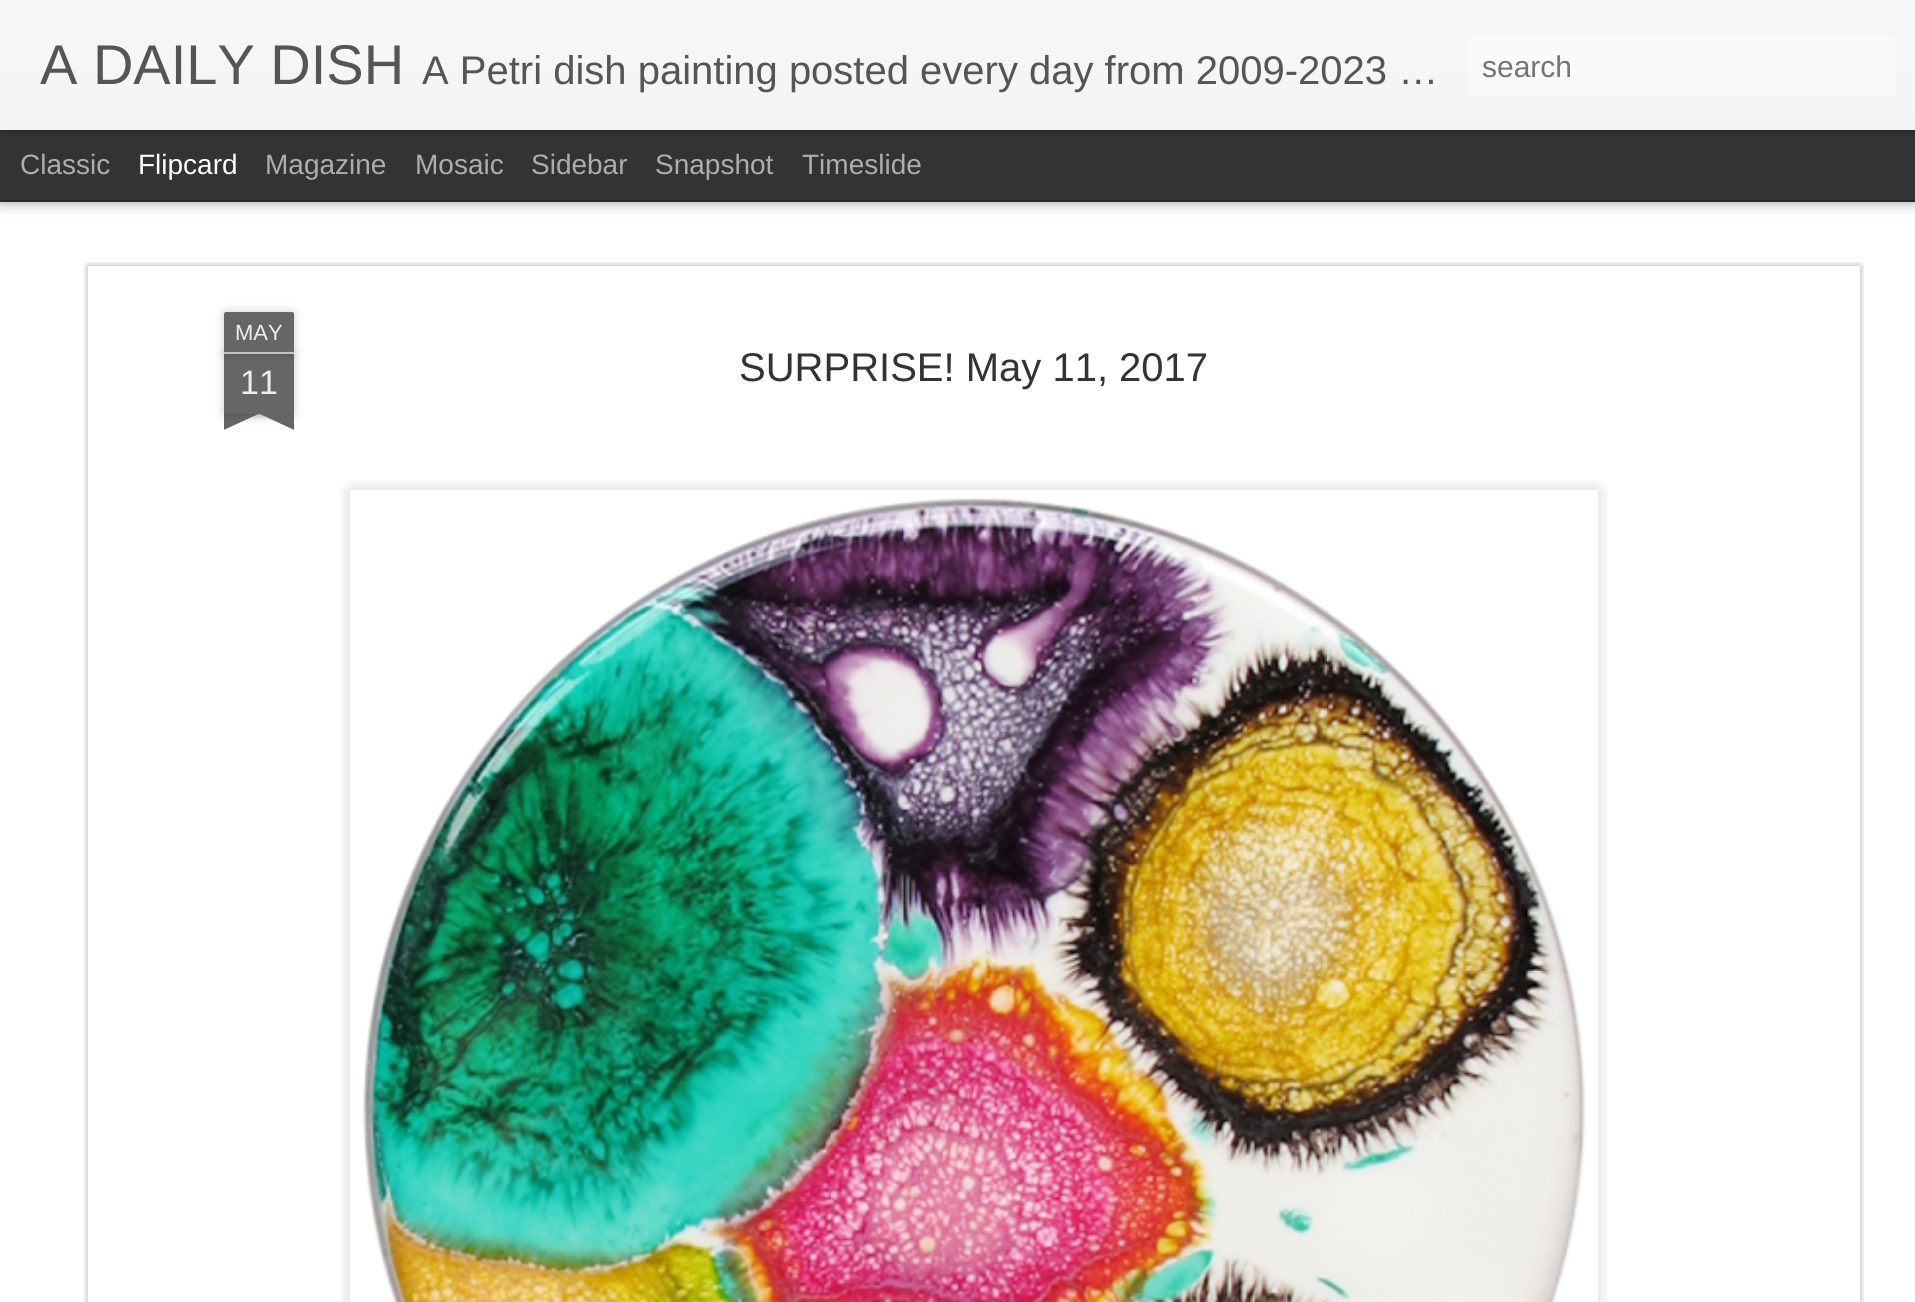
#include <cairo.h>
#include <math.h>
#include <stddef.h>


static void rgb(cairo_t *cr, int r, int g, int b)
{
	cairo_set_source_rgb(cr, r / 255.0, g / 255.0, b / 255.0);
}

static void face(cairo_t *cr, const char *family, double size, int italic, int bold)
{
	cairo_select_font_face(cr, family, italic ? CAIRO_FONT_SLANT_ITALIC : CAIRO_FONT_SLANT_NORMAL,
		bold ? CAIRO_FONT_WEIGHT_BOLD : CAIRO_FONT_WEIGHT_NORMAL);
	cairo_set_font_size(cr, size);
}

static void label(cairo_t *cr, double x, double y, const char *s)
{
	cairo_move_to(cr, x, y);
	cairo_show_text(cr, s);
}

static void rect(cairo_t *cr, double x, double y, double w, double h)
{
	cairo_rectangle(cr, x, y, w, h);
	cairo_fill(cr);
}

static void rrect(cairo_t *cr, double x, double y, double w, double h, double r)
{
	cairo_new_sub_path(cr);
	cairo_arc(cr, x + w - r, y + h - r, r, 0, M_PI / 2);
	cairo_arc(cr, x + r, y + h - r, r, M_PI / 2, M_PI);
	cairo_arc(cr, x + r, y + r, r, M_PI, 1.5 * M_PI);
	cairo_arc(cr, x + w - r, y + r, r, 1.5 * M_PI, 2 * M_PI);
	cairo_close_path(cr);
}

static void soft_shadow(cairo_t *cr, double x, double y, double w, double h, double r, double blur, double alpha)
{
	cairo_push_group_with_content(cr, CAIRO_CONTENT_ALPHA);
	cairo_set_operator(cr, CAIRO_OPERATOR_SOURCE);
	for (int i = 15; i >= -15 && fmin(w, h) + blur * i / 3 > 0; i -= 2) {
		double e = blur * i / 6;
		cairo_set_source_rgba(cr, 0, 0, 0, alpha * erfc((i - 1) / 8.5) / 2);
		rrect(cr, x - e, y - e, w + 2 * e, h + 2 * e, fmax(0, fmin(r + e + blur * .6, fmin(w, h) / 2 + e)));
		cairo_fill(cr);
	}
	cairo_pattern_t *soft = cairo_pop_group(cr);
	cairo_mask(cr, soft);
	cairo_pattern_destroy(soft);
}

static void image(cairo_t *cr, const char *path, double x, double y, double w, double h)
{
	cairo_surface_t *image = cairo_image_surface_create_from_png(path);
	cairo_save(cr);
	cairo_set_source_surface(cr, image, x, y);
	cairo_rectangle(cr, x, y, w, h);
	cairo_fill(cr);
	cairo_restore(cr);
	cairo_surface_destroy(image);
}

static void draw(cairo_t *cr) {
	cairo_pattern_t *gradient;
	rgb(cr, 51, 51, 51);
	cairo_paint(cr);
	rgb(cr, 255, 255, 255);
	rect(cr, 0, 202, 1915, 1100);
	rgb(cr, 0, 0, 0);
	soft_shadow(cr, 0, 130, 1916, 70, 0, 8, 0.5);
	rgb(cr, 51, 51, 51);
	rect(cr, 0, 130, 1915, 70);
	rgb(cr, 0, 0, 0);
	soft_shadow(cr, 0, 0, 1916, 130, 0, 5, 0.3);
	gradient = cairo_pattern_create_linear(0, 0, 0, 130);
	cairo_pattern_add_color_stop_rgba(gradient, 0, 0.969, 0.969, 0.969, 1);
	cairo_pattern_add_color_stop_rgba(gradient, 1, 0.957, 0.957, 0.957, 1);
	cairo_set_source(cr, gradient);
	cairo_pattern_destroy(gradient);
	rect(cr, 0, 0, 1915, 130);
	face(cr, "Liberation Sans", 56, 0, 0);
	rgb(cr, 85, 85, 85);
	label(cr, 40, 84, "A DAILY DISH");
	face(cr, "Liberation Sans", 40, 0, 0);
	label(cr, 422, 84, "A Petri dish painting posted every day from 2009-2023 …");
	rgb(cr, 250, 250, 250);
	rrect(cr, 1468, 36, 428, 60, 6);
	cairo_fill(cr);
	face(cr, "Liberation Sans", 30, 0, 0);
	rgb(cr, 117, 117, 117);
	label(cr, 1482, 77, "search");
	face(cr, "Liberation Sans", 28, 0, 0);
	rgb(cr, 173, 173, 173);
	label(cr, 20, 174, "Classic");
	rgb(cr, 255, 255, 255);
	label(cr, 138, 174, "Flipcard");
	rgb(cr, 173, 173, 173);
	label(cr, 265, 174, "Magazine");
	label(cr, 415, 174, "Mosaic");
	label(cr, 531, 174, "Sidebar");
	label(cr, 655, 174, "Snapshot");
	label(cr, 802, 174, "Timeslide");
	image(cr, "image0.png", 84, 262, 1780, 1040);
	rgb(cr, 0, 0, 0);
	soft_shadow(cr, 224, 354, 70, 60, 0, 5, 0.2);
	rgb(cr, 102, 102, 102);
	rect(cr, 224, 354, 70, 60);
	rgb(cr, 0, 0, 0);
	soft_shadow(cr, 224, 312, 70, 42, 2, 5, 0.2);
	rgb(cr, 102, 102, 102);
	cairo_new_path(cr);
	cairo_move_to(cr, 226, 312);
	cairo_line_to(cr, 292, 312);
	cairo_curve_to(cr, 293, 312, 294, 313, 294, 314);
	cairo_line_to(cr, 294, 354);
	cairo_line_to(cr, 224, 354);
	cairo_line_to(cr, 224, 314);
	cairo_curve_to(cr, 224, 313, 225, 312, 226, 312);
	cairo_close_path(cr);
	cairo_fill(cr);
	rgb(cr, 194, 194, 194);
	rect(cr, 224, 352, 70, 2);
	face(cr, "Liberation Sans", 22, 0, 0);
	rgb(cr, 238, 238, 238);
	label(cr, 235, 340, "MAY");
	face(cr, "Liberation Sans", 34, 0, 0);
	label(cr, 240, 394, "11");
	cairo_save(cr);
	cairo_rectangle(cr, 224, 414, 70, 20);
	cairo_clip(cr);
	rgb(cr, 0, 0, 0);
	soft_shadow(cr, 206, 394, 100, 20, 0, 5, 0.2);
	cairo_restore(cr);
	cairo_save(cr);
	cairo_rectangle(cr, 224, 414, 70, 20);
	cairo_clip(cr);
	rgb(cr, 102, 102, 102);
	cairo_new_path(cr);
	cairo_move_to(cr, 206, 416);
	cairo_line_to(cr, 297, 374);
	cairo_line_to(cr, 306, 392);
	cairo_line_to(cr, 215, 434);
	cairo_close_path(cr);
	cairo_fill(cr);
	cairo_restore(cr);
	cairo_save(cr);
	cairo_rectangle(cr, 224, 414, 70, 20);
	cairo_clip(cr);
	rgb(cr, 0, 0, 0);
	soft_shadow(cr, 212, 394, 100, 20, 0, 5, 0.2);
	cairo_restore(cr);
	cairo_save(cr);
	cairo_rectangle(cr, 224, 414, 70, 20);
	cairo_clip(cr);
	rgb(cr, 102, 102, 102);
	cairo_new_path(cr);
	cairo_move_to(cr, 221, 374);
	cairo_line_to(cr, 312, 416);
	cairo_line_to(cr, 303, 434);
	cairo_line_to(cr, 212, 392);
	cairo_close_path(cr);
	cairo_fill(cr);
	cairo_restore(cr);
	face(cr, "Liberation Sans", 40, 0, 0);
	rgb(cr, 51, 51, 51);
	label(cr, 739, 381, "SURPRISE! May 11, 2017");
	image(cr, "image1.png", 340, 480, 1268, 822);
	image(cr, "image2.png", 349, 489, 1250, 813);
}

int main(void) {
	cairo_surface_t *surface = cairo_image_surface_create(CAIRO_FORMAT_RGB24, 1915, 1302);
	cairo_t *cr = cairo_create(surface);
	cairo_font_options_t *options = cairo_font_options_create();
	cairo_font_options_set_hint_metrics(options, CAIRO_HINT_METRICS_OFF);
	cairo_font_options_set_hint_style(options, CAIRO_HINT_STYLE_NONE);
	cairo_set_font_options(cr, options);
	cairo_set_miter_limit(cr, 4);
	draw(cr);
	cairo_surface_write_to_png(surface, "render.png");
	cairo_font_options_destroy(options);
	cairo_destroy(cr);
	cairo_surface_destroy(surface);
	return 0;
}
